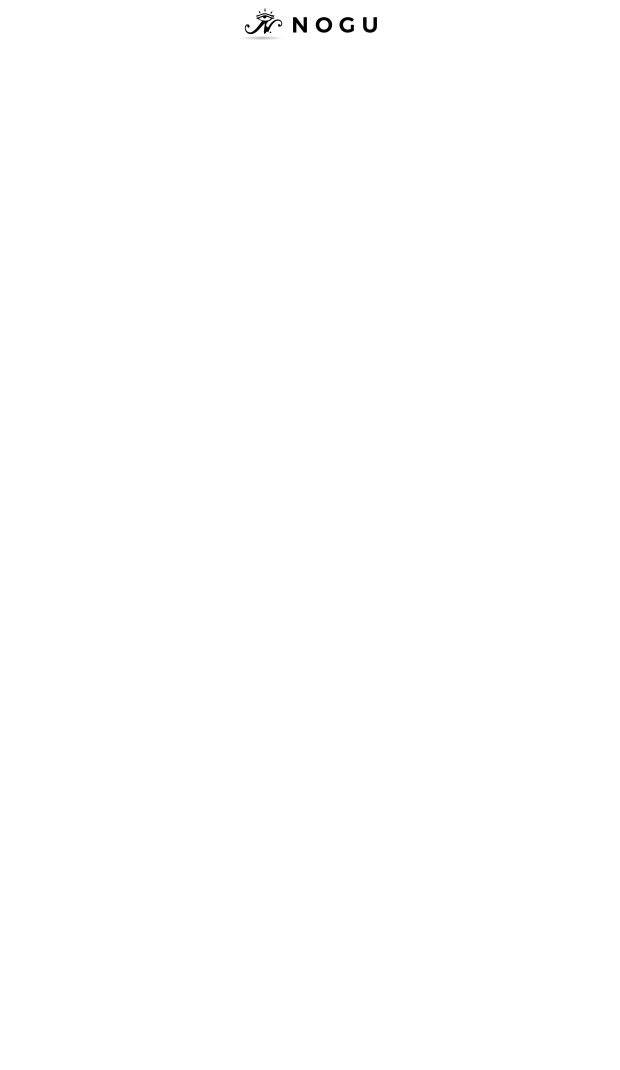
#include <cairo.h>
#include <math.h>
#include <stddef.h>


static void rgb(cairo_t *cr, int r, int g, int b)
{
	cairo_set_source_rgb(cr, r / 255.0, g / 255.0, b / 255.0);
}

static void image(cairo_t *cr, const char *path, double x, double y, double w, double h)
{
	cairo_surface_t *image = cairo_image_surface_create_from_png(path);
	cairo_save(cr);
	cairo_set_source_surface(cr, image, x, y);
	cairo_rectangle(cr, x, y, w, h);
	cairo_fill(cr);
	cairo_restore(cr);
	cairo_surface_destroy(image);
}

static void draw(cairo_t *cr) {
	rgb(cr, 255, 255, 255);
	cairo_paint(cr);
	image(cr, "image0.png", 242, 8, 135, 32);
}

int main(void) {
	cairo_surface_t *surface = cairo_image_surface_create(CAIRO_FORMAT_RGB24, 620, 1070);
	cairo_t *cr = cairo_create(surface);
	cairo_font_options_t *options = cairo_font_options_create();
	cairo_font_options_set_hint_metrics(options, CAIRO_HINT_METRICS_OFF);
	cairo_font_options_set_hint_style(options, CAIRO_HINT_STYLE_NONE);
	cairo_set_font_options(cr, options);
	cairo_set_miter_limit(cr, 4);
	draw(cr);
	cairo_surface_write_to_png(surface, "render.png");
	cairo_font_options_destroy(options);
	cairo_destroy(cr);
	cairo_surface_destroy(surface);
	return 0;
}
